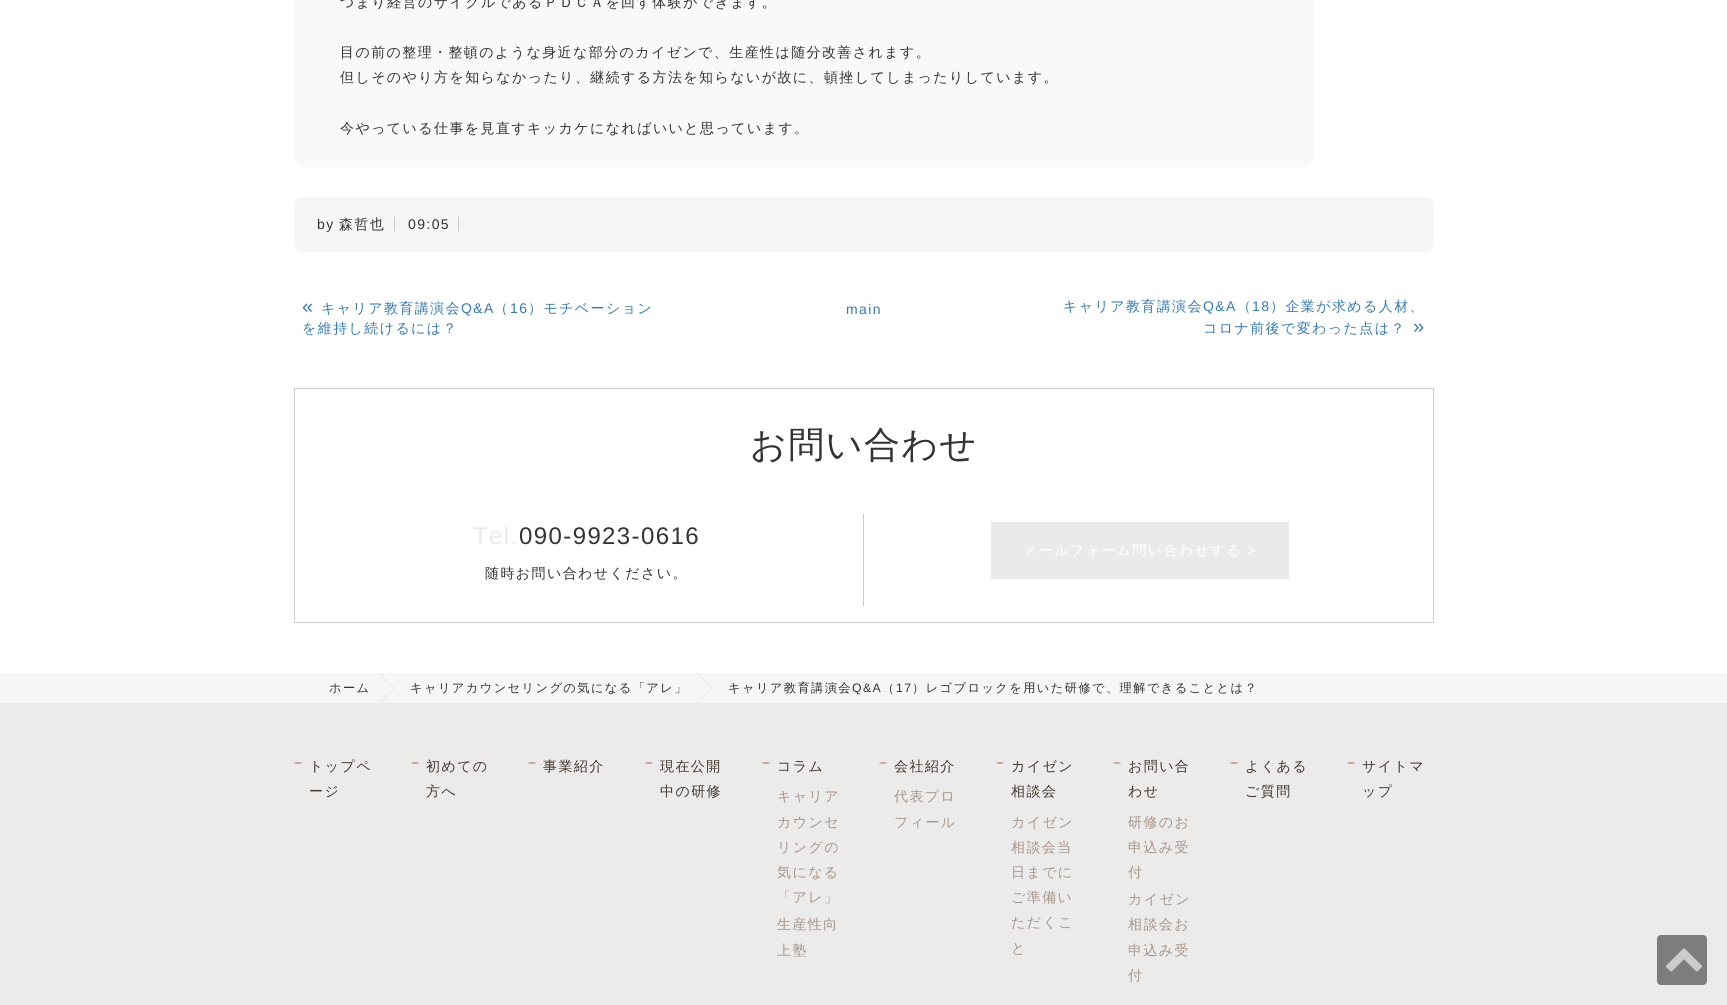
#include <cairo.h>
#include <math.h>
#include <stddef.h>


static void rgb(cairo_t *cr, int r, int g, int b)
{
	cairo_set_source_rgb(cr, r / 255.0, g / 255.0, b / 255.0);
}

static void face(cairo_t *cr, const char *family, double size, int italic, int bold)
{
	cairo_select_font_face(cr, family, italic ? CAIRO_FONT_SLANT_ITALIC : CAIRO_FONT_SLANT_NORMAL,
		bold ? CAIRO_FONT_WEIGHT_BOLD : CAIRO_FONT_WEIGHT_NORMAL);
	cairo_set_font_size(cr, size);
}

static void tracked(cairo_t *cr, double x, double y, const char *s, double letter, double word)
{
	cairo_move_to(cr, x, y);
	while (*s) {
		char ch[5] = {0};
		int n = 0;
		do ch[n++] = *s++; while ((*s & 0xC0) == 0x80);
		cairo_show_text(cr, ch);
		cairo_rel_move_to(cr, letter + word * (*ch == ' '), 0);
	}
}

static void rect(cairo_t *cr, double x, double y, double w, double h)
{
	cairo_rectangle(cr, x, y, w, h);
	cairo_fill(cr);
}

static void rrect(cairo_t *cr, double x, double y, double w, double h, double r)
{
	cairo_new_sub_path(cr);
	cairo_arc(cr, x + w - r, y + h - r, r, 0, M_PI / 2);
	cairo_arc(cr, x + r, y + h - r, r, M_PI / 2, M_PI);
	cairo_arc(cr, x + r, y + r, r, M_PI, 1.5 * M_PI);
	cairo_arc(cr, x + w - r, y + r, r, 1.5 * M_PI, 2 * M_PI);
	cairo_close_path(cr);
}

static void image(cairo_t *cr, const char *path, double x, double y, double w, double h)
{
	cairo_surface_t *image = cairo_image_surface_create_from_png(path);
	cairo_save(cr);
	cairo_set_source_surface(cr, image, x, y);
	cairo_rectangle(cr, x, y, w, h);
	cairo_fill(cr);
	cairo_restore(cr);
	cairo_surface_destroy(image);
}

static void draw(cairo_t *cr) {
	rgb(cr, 255, 255, 255);
	cairo_paint(cr);
	rgb(cr, 249, 249, 249);
	rrect(cr, 294, -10, 1020, 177, 10);
	cairo_fill(cr);
	face(cr, "WenQuanYi Zen Hei Medium", 14, 0, 0);
	rgb(cr, 51, 51, 51);
	tracked(cr, 340, 7, "つまり経営のサイクルであるＰＤＣＡを回す体験ができます。", 1.4, 0);
	tracked(cr, 340, 57, "目の前の整理・整頓のような身近な部分のカイゼンで、生産性は随分改善されます。", 1.4, 0);
	tracked(cr, 340, 82, "但しそのやり方を知らなかったり、継続する方法を知らないが故に、頓挫してしまったりしています。", 1.4, 0);
	tracked(cr, 340, 133, "今やっている仕事を見直すキッカケになればいいと思っています。", 1.4, 0);
	rgb(cr, 246, 246, 246);
	rrect(cr, 294, 197, 1140, 55, 8);
	cairo_fill(cr);
	rgb(cr, 204, 204, 204);
	rect(cr, 394, 217, 1, 14);
	face(cr, "Liberation Sans", 14, 0, 0);
	rgb(cr, 51, 51, 51);
	tracked(cr, 317, 229, "by", 1.4, 0);
	face(cr, "WenQuanYi Zen Hei Medium", 14, 0, 0);
	tracked(cr, 339, 229, "森哲也", 1.4, 0);
	rgb(cr, 204, 204, 204);
	rect(cr, 458, 217, 1, 14);
	face(cr, "Liberation Sans", 14, 0, 0);
	rgb(cr, 51, 51, 51);
	tracked(cr, 408, 229, "09:05", 1.4, 0);
	face(cr, "Liberation Sans", 20, 0, 0);
	rgb(cr, 51, 122, 183);
	tracked(cr, 302, 313, "«", 1.4, 0);
	face(cr, "WenQuanYi Zen Hei Medium", 14, 0, 0);
	tracked(cr, 321, 313, "キャリア教育講演会", 1.4, 0);
	face(cr, "Liberation Sans", 14, 0, 0);
	tracked(cr, 461, 313, "Q&A", 1.4, 0);
	face(cr, "WenQuanYi Zen Hei Medium", 14, 0, 0);
	tracked(cr, 494, 313, "（", 1.4, 0);
	face(cr, "Liberation Sans", 14, 0, 0);
	tracked(cr, 510, 313, "16", 1.4, 0);
	face(cr, "WenQuanYi Zen Hei Medium", 14, 0, 0);
	tracked(cr, 528, 313, "）モチベーション", 1.4, 0);
	tracked(cr, 302, 333, "を維持し続けるには？", 1.4, 0);
	face(cr, "Liberation Sans", 14, 0, 0);
	tracked(cr, 846, 314, "main", 1.4, 0);
	face(cr, "WenQuanYi Zen Hei Medium", 14, 0, 0);
	tracked(cr, 1063, 311, "キャリア教育講演会", 1.4, 0);
	face(cr, "Liberation Sans", 14, 0, 0);
	tracked(cr, 1203, 311, "Q&A", 1.4, 0);
	face(cr, "WenQuanYi Zen Hei Medium", 14, 0, 0);
	tracked(cr, 1237, 311, "（", 1.4, 0);
	face(cr, "Liberation Sans", 14, 0, 0);
	tracked(cr, 1252, 311, "18", 1.4, 0);
	face(cr, "WenQuanYi Zen Hei Medium", 14, 0, 0);
	tracked(cr, 1270, 311, "）企業が求める人材、", 1.4, 0);
	tracked(cr, 1203, 333, "コロナ前後で変わった点は？", 1.4, 0);
	face(cr, "Liberation Sans", 20, 0, 0);
	tracked(cr, 1413, 333, "»", 1.4, 0);
	cairo_rectangle(cr, 294.5, 388.5, 1139, 234);
	rgb(cr, 204, 204, 204);
	cairo_set_line_width(cr, 1);
	cairo_stroke(cr);
	face(cr, "WenQuanYi Zen Hei Medium", 36, 0, 0);
	rgb(cr, 51, 51, 51);
	tracked(cr, 750, 457, "お問い合わせ", 1.4, 0);
	rgb(cr, 204, 204, 204);
	rect(cr, 863, 514, 1, 92);
	face(cr, "Liberation Sans", 24, 0, 0);
	rgb(cr, 234, 234, 234);
	tracked(cr, 473, 544, "Tel.", 1.4, 0);
	rgb(cr, 51, 51, 51);
	tracked(cr, 519, 544, "090-9923-0616", 1.4, 0);
	face(cr, "WenQuanYi Zen Hei Medium", 14, 0, 0);
	tracked(cr, 485, 578, "随時お問い合わせください。", 1.4, 0);
	rgb(cr, 234, 234, 234);
	rect(cr, 991, 522, 298, 57);
	rgb(cr, 255, 255, 255);
	tracked(cr, 1023, 555, "メールフォーム問い合わせする", 1.4, 0);
	face(cr, "Liberation Sans", 14, 0, 0);
	tracked(cr, 1247, 555, ">", 1.4, 0);
	rgb(cr, 246, 246, 246);
	rect(cr, 0, 673, 1727, 30);
	face(cr, "WenQuanYi Zen Hei Medium", 12.25, 0, 0);
	rgb(cr, 51, 51, 51);
	tracked(cr, 329, 692, "ホーム", 1.4, 0);
	rgb(cr, 235, 235, 235);
	cairo_new_path(cr);
	cairo_move_to(cr, 379.5, 673);
	cairo_line_to(cr, 395, 688.5);
	cairo_line_to(cr, 394.5, 689.5);
	cairo_line_to(cr, 378, 673);
	cairo_close_path(cr);
	cairo_fill(cr);
	rgb(cr, 51, 51, 51);
	tracked(cr, 410, 692, "キャリアカウンセリングの気になる「アレ」", 1.4, 0);
	rgb(cr, 235, 235, 235);
	cairo_new_path(cr);
	cairo_move_to(cr, 380.5, 703);
	cairo_line_to(cr, 378.5, 703);
	cairo_line_to(cr, 394.5, 687.5);
	cairo_line_to(cr, 395, 688);
	cairo_close_path(cr);
	cairo_fill(cr);
	cairo_new_path(cr);
	cairo_move_to(cr, 696.5, 672.5);
	cairo_line_to(cr, 713, 688.5);
	cairo_line_to(cr, 712, 689.5);
	cairo_line_to(cr, 696, 673);
	cairo_close_path(cr);
	cairo_fill(cr);
	rgb(cr, 51, 51, 51);
	tracked(cr, 728, 692, "キャリア教育講演会", 1.4, 0);
	face(cr, "Liberation Sans", 12.25, 0, 0);
	tracked(cr, 852, 692, "Q&A", 1.4, 0);
	face(cr, "WenQuanYi Zen Hei Medium", 12.25, 0, 0);
	tracked(cr, 882, 692, "（", 1.4, 0);
	face(cr, "Liberation Sans", 12.25, 0, 0);
	tracked(cr, 896, 692, "17", 1.4, 0);
	face(cr, "WenQuanYi Zen Hei Medium", 12.25, 0, 0);
	tracked(cr, 912, 692, "）レゴブロックを用いた研修で、理解できることとは？", 1.4, 0);
	rgb(cr, 235, 235, 235);
	cairo_new_path(cr);
	cairo_move_to(cr, 698, 703);
	cairo_line_to(cr, 696.5, 703);
	cairo_line_to(cr, 712, 687.5);
	cairo_line_to(cr, 713, 688);
	cairo_close_path(cr);
	cairo_fill(cr);
	rect(cr, 0, 703, 1727, 302);
	rgb(cr, 204, 160, 149);
	cairo_new_path(cr);
	cairo_move_to(cr, 298, 762);
	cairo_curve_to(cr, 300, 762, 302, 762.5, 302, 763);
	cairo_curve_to(cr, 302, 763.5, 300, 764, 298, 764);
	cairo_curve_to(cr, 296, 764, 294, 763.5, 294, 763);
	cairo_curve_to(cr, 294, 762.5, 296, 762, 298, 762);
	cairo_close_path(cr);
	cairo_fill(cr);
	face(cr, "WenQuanYi Zen Hei Medium", 14, 0, 0);
	rgb(cr, 68, 55, 45);
	tracked(cr, 309, 771, "トップペ", 1.4, 0);
	tracked(cr, 309, 796, "ージ", 1.4, 0);
	rgb(cr, 204, 160, 149);
	cairo_new_path(cr);
	cairo_move_to(cr, 415, 762);
	cairo_curve_to(cr, 417, 762, 419, 762.5, 419, 763);
	cairo_curve_to(cr, 419, 763.5, 417, 764, 415, 764);
	cairo_curve_to(cr, 413, 764, 411, 763.5, 411, 763);
	cairo_curve_to(cr, 411, 762.5, 413, 762, 415, 762);
	cairo_close_path(cr);
	cairo_fill(cr);
	rgb(cr, 68, 55, 45);
	tracked(cr, 426, 771, "初めての", 1.4, 0);
	tracked(cr, 426, 796, "方へ", 1.4, 0);
	rgb(cr, 204, 160, 149);
	cairo_new_path(cr);
	cairo_move_to(cr, 532, 762);
	cairo_curve_to(cr, 534, 762, 536, 762.5, 536, 763);
	cairo_curve_to(cr, 536, 763.5, 534, 764, 532, 764);
	cairo_curve_to(cr, 530, 764, 528, 763.5, 528, 763);
	cairo_curve_to(cr, 528, 762.5, 530, 762, 532, 762);
	cairo_close_path(cr);
	cairo_fill(cr);
	rgb(cr, 68, 55, 45);
	tracked(cr, 543, 771, "事業紹介", 1.4, 0);
	rgb(cr, 204, 160, 149);
	cairo_new_path(cr);
	cairo_move_to(cr, 649, 762);
	cairo_curve_to(cr, 651, 762, 653, 762.5, 653, 763);
	cairo_curve_to(cr, 653, 763.5, 651, 764, 649, 764);
	cairo_curve_to(cr, 647, 764, 645, 763.5, 645, 763);
	cairo_curve_to(cr, 645, 762.5, 647, 762, 649, 762);
	cairo_close_path(cr);
	cairo_fill(cr);
	rgb(cr, 68, 55, 45);
	tracked(cr, 660, 771, "現在公開", 1.4, 0);
	tracked(cr, 660, 796, "中の研修", 1.4, 0);
	rgb(cr, 204, 160, 149);
	cairo_new_path(cr);
	cairo_move_to(cr, 766, 762);
	cairo_curve_to(cr, 768, 762, 770, 762.5, 770, 763);
	cairo_curve_to(cr, 770, 763.5, 768, 764, 766, 764);
	cairo_curve_to(cr, 764, 764, 762, 763.5, 762, 763);
	cairo_curve_to(cr, 762, 762.5, 764, 762, 766, 762);
	cairo_close_path(cr);
	cairo_fill(cr);
	rgb(cr, 68, 55, 45);
	tracked(cr, 777, 771, "コラム", 1.4, 0);
	rgb(cr, 168, 150, 136);
	tracked(cr, 777, 801, "キャリア", 1.4, 0);
	tracked(cr, 777, 827, "カウンセ", 1.4, 0);
	tracked(cr, 777, 852, "リングの", 1.4, 0);
	tracked(cr, 777, 877, "気になる", 1.4, 0);
	tracked(cr, 777, 902, "「アレ」", 1.4, 0);
	tracked(cr, 777, 929, "生産性向", 1.4, 0);
	tracked(cr, 777, 955, "上塾", 1.4, 0);
	rgb(cr, 204, 160, 149);
	cairo_new_path(cr);
	cairo_move_to(cr, 883, 762);
	cairo_curve_to(cr, 885, 762, 887, 762.5, 887, 763);
	cairo_curve_to(cr, 887, 763.5, 885, 764, 883, 764);
	cairo_curve_to(cr, 881, 764, 879, 763.5, 879, 763);
	cairo_curve_to(cr, 879, 762.5, 881, 762, 883, 762);
	cairo_close_path(cr);
	cairo_fill(cr);
	rgb(cr, 68, 55, 45);
	tracked(cr, 894, 771, "会社紹介", 1.4, 0);
	rgb(cr, 168, 150, 136);
	tracked(cr, 894, 801, "代表プロ", 1.4, 0);
	tracked(cr, 894, 827, "フィール", 1.4, 0);
	rgb(cr, 204, 160, 149);
	cairo_new_path(cr);
	cairo_move_to(cr, 1000, 762);
	cairo_curve_to(cr, 1002, 762, 1004, 762.5, 1004, 763);
	cairo_curve_to(cr, 1004, 763.5, 1002, 764, 1000, 764);
	cairo_curve_to(cr, 998, 764, 996, 763.5, 996, 763);
	cairo_curve_to(cr, 996, 762.5, 998, 762, 1000, 762);
	cairo_close_path(cr);
	cairo_fill(cr);
	rgb(cr, 68, 55, 45);
	tracked(cr, 1011, 771, "カイゼン", 1.4, 0);
	tracked(cr, 1011, 796, "相談会", 1.4, 0);
	rgb(cr, 168, 150, 136);
	tracked(cr, 1011, 827, "カイゼン", 1.4, 0);
	tracked(cr, 1011, 852, "相談会当", 1.4, 0);
	tracked(cr, 1011, 877, "日までに", 1.4, 0);
	tracked(cr, 1011, 902, "ご準備い", 1.4, 0);
	tracked(cr, 1011, 927, "ただくこ", 1.4, 0);
	tracked(cr, 1011, 953, "と", 1.4, 0);
	rgb(cr, 204, 160, 149);
	cairo_new_path(cr);
	cairo_move_to(cr, 1117, 762);
	cairo_curve_to(cr, 1119, 762, 1121, 762.5, 1121, 763);
	cairo_curve_to(cr, 1121, 763.5, 1119, 764, 1117, 764);
	cairo_curve_to(cr, 1115, 764, 1113, 763.5, 1113, 763);
	cairo_curve_to(cr, 1113, 762.5, 1115, 762, 1117, 762);
	cairo_close_path(cr);
	cairo_fill(cr);
	rgb(cr, 68, 55, 45);
	tracked(cr, 1128, 771, "お問い合", 1.4, 0);
	tracked(cr, 1128, 796, "わせ", 1.4, 0);
	rgb(cr, 168, 150, 136);
	tracked(cr, 1128, 827, "研修のお", 1.4, 0);
	tracked(cr, 1128, 852, "申込み受", 1.4, 0);
	tracked(cr, 1128, 877, "付", 1.4, 0);
	tracked(cr, 1128, 904, "カイゼン", 1.4, 0);
	tracked(cr, 1128, 929, "相談会お", 1.4, 0);
	tracked(cr, 1128, 955, "申込み受", 1.4, 0);
	tracked(cr, 1128, 980, "付", 1.4, 0);
	rgb(cr, 204, 160, 149);
	cairo_new_path(cr);
	cairo_move_to(cr, 1234, 762);
	cairo_curve_to(cr, 1236, 762, 1238, 762.5, 1238, 763);
	cairo_curve_to(cr, 1238, 763.5, 1236, 764, 1234, 764);
	cairo_curve_to(cr, 1232, 764, 1230, 763.5, 1230, 763);
	cairo_curve_to(cr, 1230, 762.5, 1232, 762, 1234, 762);
	cairo_close_path(cr);
	cairo_fill(cr);
	rgb(cr, 68, 55, 45);
	tracked(cr, 1245, 771, "よくある", 1.4, 0);
	tracked(cr, 1245, 796, "ご質問", 1.4, 0);
	rgb(cr, 204, 160, 149);
	cairo_new_path(cr);
	cairo_move_to(cr, 1351, 762);
	cairo_curve_to(cr, 1353, 762, 1355, 762.5, 1355, 763);
	cairo_curve_to(cr, 1355, 763.5, 1353, 764, 1351, 764);
	cairo_curve_to(cr, 1349, 764, 1347, 763.5, 1347, 763);
	cairo_curve_to(cr, 1347, 762.5, 1349, 762, 1351, 762);
	cairo_close_path(cr);
	cairo_fill(cr);
	rgb(cr, 68, 55, 45);
	tracked(cr, 1362, 771, "サイトマ", 1.4, 0);
	tracked(cr, 1362, 796, "ップ", 1.4, 0);
	rgb(cr, 125, 125, 125);
	rrect(cr, 1657, 935, 50, 50, 4);
	cairo_fill(cr);
	image(cr, "image0.png", 1666, 948, 36, 24);
}

int main(void) {
	cairo_surface_t *surface = cairo_image_surface_create(CAIRO_FORMAT_RGB24, 1727, 1005);
	cairo_t *cr = cairo_create(surface);
	cairo_font_options_t *options = cairo_font_options_create();
	cairo_font_options_set_hint_metrics(options, CAIRO_HINT_METRICS_OFF);
	cairo_font_options_set_hint_style(options, CAIRO_HINT_STYLE_NONE);
	cairo_set_font_options(cr, options);
	cairo_set_miter_limit(cr, 4);
	draw(cr);
	cairo_surface_write_to_png(surface, "render.png");
	cairo_font_options_destroy(options);
	cairo_destroy(cr);
	cairo_surface_destroy(surface);
	return 0;
}
